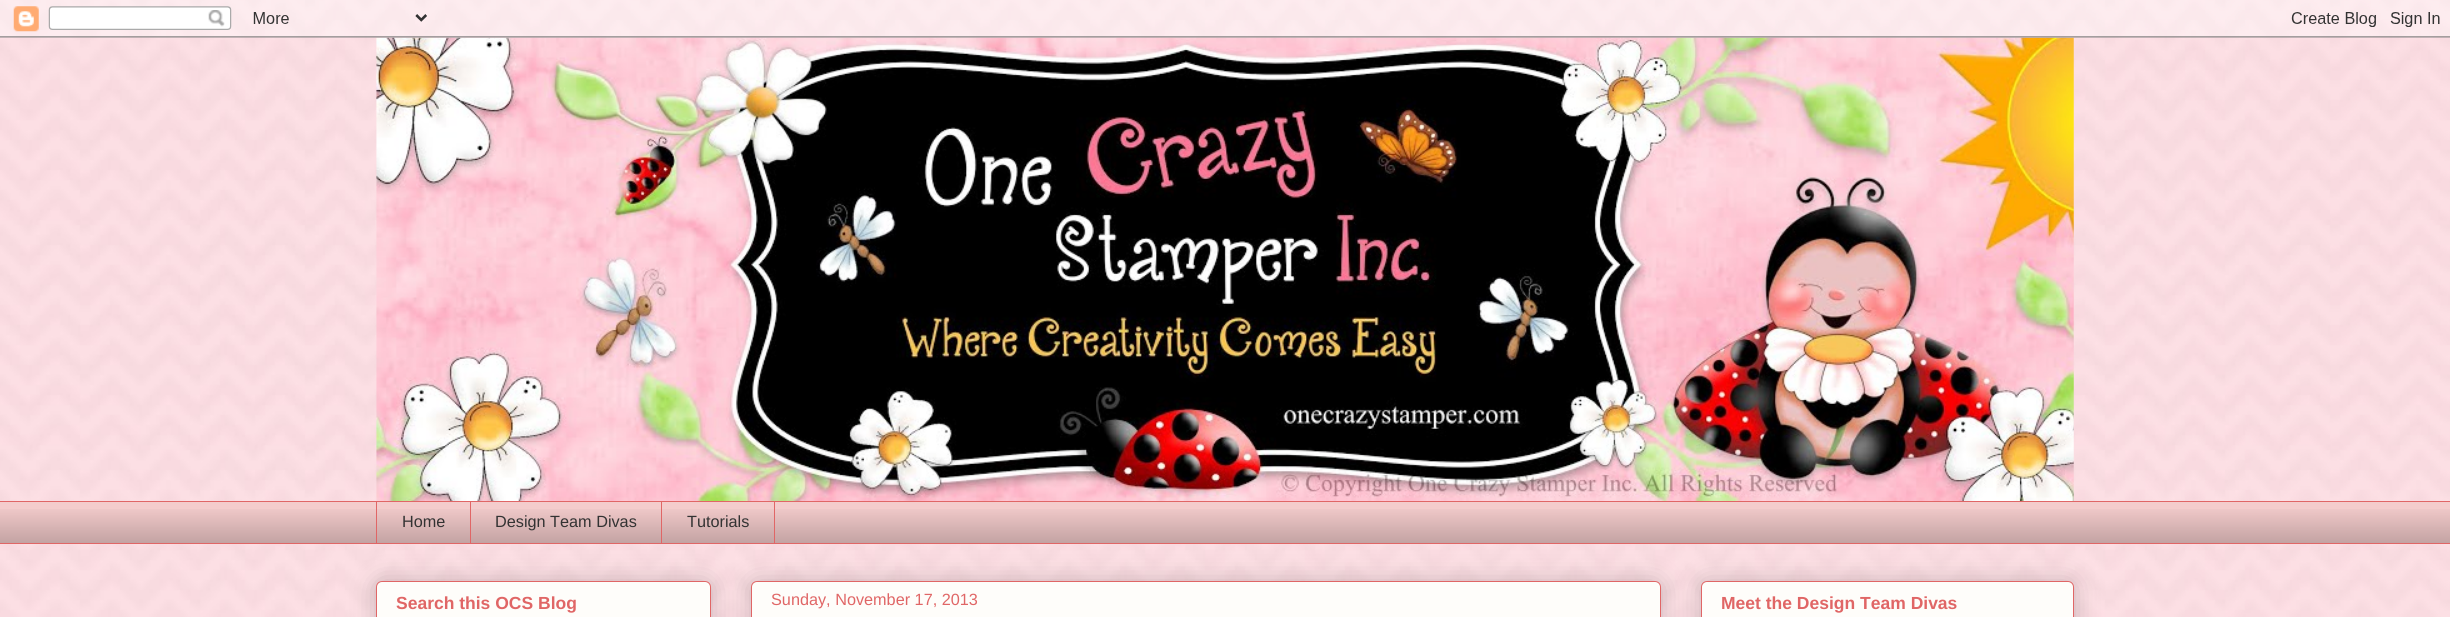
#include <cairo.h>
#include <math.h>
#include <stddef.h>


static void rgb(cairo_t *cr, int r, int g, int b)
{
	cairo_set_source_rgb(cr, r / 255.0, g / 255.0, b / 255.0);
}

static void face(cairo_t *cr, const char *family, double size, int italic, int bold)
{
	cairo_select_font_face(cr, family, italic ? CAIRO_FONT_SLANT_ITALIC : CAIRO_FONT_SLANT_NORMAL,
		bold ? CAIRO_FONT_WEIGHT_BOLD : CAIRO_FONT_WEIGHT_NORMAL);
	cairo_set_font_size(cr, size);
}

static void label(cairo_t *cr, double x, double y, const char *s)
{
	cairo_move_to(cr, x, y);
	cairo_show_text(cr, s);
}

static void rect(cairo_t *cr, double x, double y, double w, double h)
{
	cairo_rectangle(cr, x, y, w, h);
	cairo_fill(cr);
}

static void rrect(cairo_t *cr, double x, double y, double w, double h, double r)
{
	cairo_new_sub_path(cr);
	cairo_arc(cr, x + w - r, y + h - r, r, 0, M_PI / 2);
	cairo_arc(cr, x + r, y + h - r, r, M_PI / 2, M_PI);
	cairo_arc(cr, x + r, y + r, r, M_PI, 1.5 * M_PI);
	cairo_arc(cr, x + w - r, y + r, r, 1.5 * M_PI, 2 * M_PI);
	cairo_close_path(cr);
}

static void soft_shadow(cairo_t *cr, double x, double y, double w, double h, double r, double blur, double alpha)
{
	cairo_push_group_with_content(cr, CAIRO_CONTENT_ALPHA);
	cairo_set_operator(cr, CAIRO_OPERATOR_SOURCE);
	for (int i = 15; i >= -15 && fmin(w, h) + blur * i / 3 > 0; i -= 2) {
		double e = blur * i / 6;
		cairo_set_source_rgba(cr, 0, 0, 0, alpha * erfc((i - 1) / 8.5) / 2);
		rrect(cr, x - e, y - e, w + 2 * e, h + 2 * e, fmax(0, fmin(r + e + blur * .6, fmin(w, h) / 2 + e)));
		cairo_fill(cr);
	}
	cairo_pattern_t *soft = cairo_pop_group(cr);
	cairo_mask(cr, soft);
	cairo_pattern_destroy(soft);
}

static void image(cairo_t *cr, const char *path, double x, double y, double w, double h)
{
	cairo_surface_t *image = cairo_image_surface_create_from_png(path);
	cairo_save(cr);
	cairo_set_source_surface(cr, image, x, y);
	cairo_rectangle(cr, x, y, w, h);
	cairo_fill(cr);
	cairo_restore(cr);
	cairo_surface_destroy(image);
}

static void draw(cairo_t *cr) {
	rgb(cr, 255, 255, 255);
	cairo_paint(cr);
	image(cr, "image0.png", 0, 0, 2450, 617);
	image(cr, "image2.png", 376, 37, 1698, 464);
	image(cr, "image1.png", 0, 0, 2450, 38);
	rgb(cr, 244, 204, 204);
	rect(cr, 0, 502, 2450, 41);
	image(cr, "image3.png", 0, 509, 2450, 34);
	rgb(cr, 224, 102, 102);
	rect(cr, 0, 501, 2450, 1);
	rect(cr, 376, 501, 1, 43);
	face(cr, "Liberation Sans", 16.25, 0, 0);
	rgb(cr, 51, 51, 51);
	label(cr, 402, 527, "Home");
	rgb(cr, 224, 102, 102);
	rect(cr, 470, 501, 1, 43);
	rgb(cr, 51, 51, 51);
	label(cr, 495, 527, "Design Team Divas");
	cairo_rectangle(cr, 661.5, 501.5, 113, 42);
	rgb(cr, 224, 102, 102);
	cairo_set_line_width(cr, 1);
	cairo_stroke(cr);
	rgb(cr, 51, 51, 51);
	label(cr, 687, 527, "Tutorials");
	rgb(cr, 224, 102, 102);
	rect(cr, 0, 543, 2450, 1);
	rgb(cr, 0, 0, 0);
	soft_shadow(cr, 376, 581, 335, 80, 6, 12.5, 0.2);
	rgb(cr, 254, 253, 250);
	rrect(cr, 376.5, 581.5, 334, 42, 5.5);
	cairo_fill_preserve(cr);
	rgb(cr, 224, 102, 102);
	cairo_stroke(cr);
	face(cr, "Liberation Sans", 17.5, 0, 1);
	label(cr, 396, 609, "Search this OCS Blog");
	rgb(cr, 0, 0, 0);
	soft_shadow(cr, 751, 581, 910, 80, 6, 12.5, 0.2);
	rgb(cr, 254, 253, 250);
	rrect(cr, 751.5, 581.5, 909, 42, 5.5);
	cairo_fill_preserve(cr);
	rgb(cr, 224, 102, 102);
	cairo_stroke(cr);
	face(cr, "Liberation Sans", 16.25, 0, 0);
	label(cr, 771, 605, "Sunday, November 17, 2013");
	rgb(cr, 0, 0, 0);
	soft_shadow(cr, 1701, 581, 373, 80, 6, 12.5, 0.2);
	rgb(cr, 254, 253, 250);
	rrect(cr, 1701.5, 581.5, 372, 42, 5.5);
	cairo_fill_preserve(cr);
	rgb(cr, 224, 102, 102);
	cairo_stroke(cr);
	face(cr, "Liberation Sans", 17.5, 0, 1);
	label(cr, 1721, 609, "Meet the Design Team Divas");
}

int main(void) {
	cairo_surface_t *surface = cairo_image_surface_create(CAIRO_FORMAT_RGB24, 2450, 617);
	cairo_t *cr = cairo_create(surface);
	cairo_font_options_t *options = cairo_font_options_create();
	cairo_font_options_set_hint_metrics(options, CAIRO_HINT_METRICS_OFF);
	cairo_font_options_set_hint_style(options, CAIRO_HINT_STYLE_NONE);
	cairo_set_font_options(cr, options);
	cairo_set_miter_limit(cr, 4);
	draw(cr);
	cairo_surface_write_to_png(surface, "render.png");
	cairo_font_options_destroy(options);
	cairo_destroy(cr);
	cairo_surface_destroy(surface);
	return 0;
}
